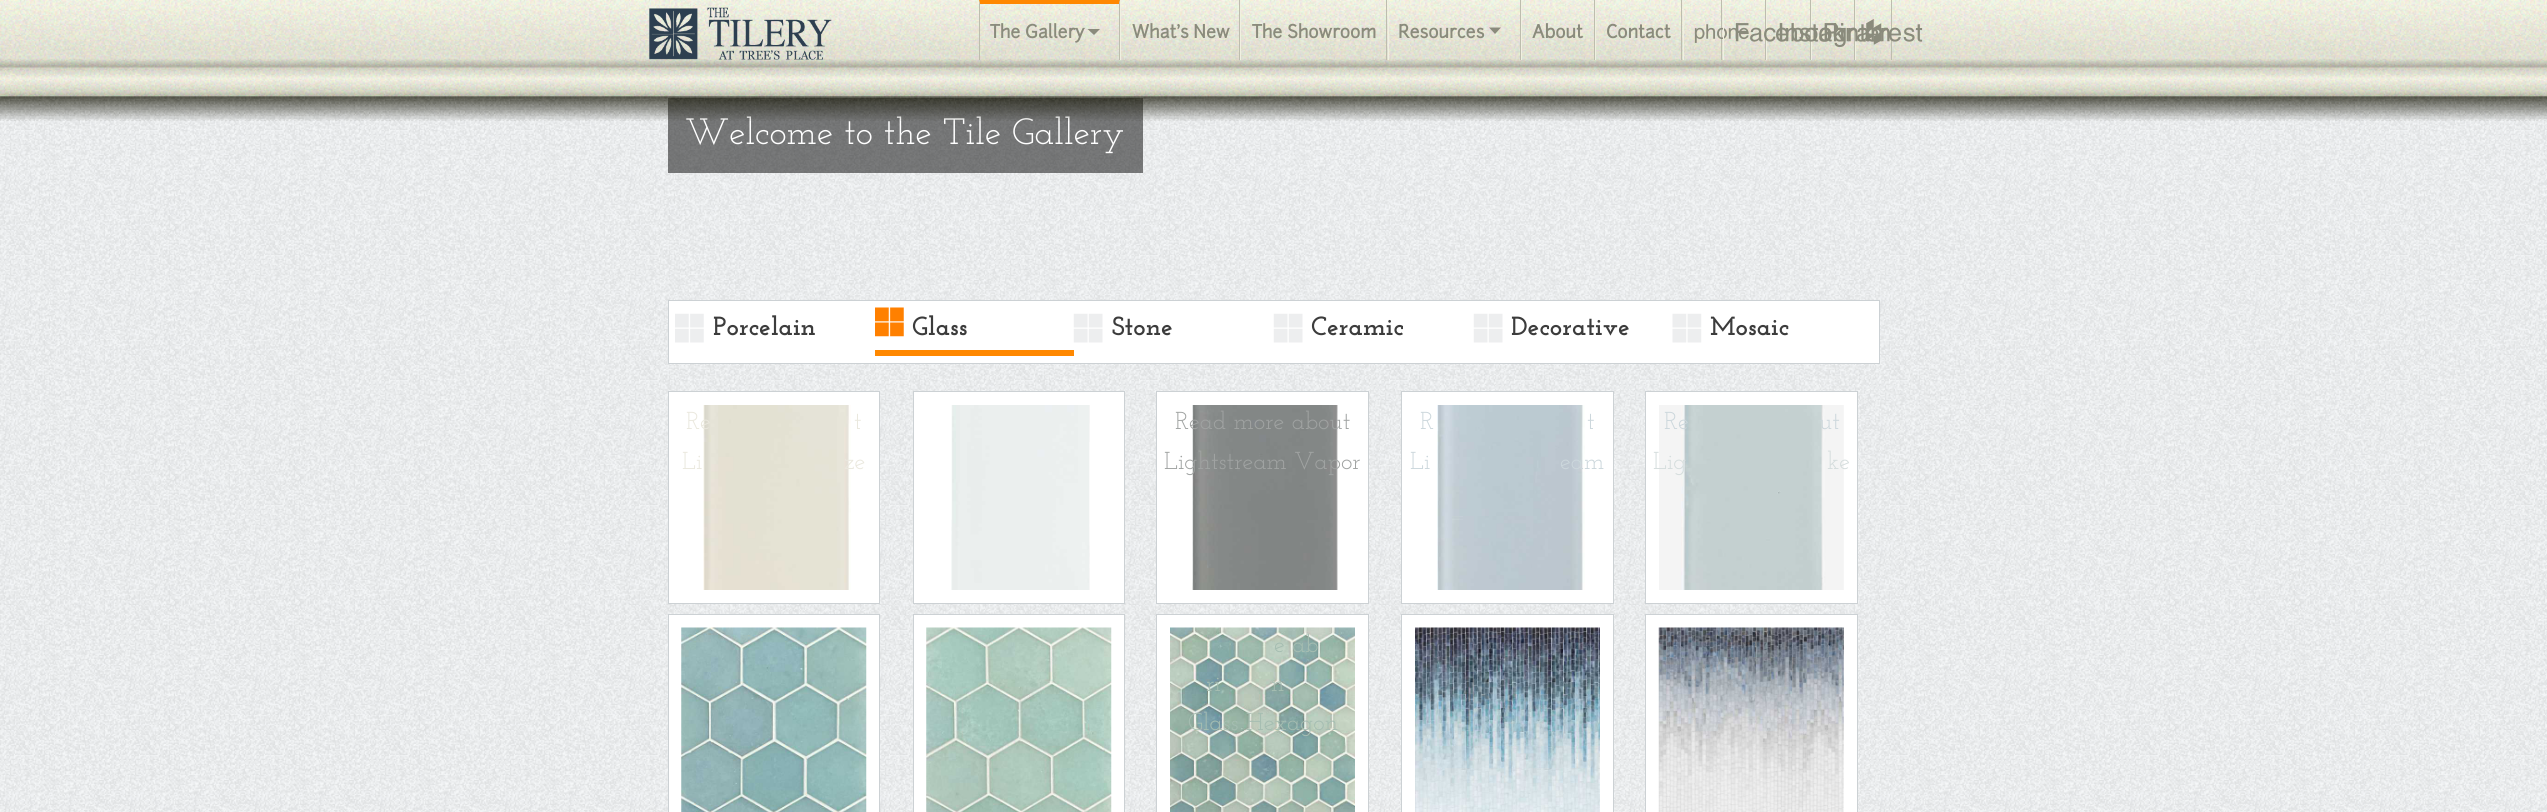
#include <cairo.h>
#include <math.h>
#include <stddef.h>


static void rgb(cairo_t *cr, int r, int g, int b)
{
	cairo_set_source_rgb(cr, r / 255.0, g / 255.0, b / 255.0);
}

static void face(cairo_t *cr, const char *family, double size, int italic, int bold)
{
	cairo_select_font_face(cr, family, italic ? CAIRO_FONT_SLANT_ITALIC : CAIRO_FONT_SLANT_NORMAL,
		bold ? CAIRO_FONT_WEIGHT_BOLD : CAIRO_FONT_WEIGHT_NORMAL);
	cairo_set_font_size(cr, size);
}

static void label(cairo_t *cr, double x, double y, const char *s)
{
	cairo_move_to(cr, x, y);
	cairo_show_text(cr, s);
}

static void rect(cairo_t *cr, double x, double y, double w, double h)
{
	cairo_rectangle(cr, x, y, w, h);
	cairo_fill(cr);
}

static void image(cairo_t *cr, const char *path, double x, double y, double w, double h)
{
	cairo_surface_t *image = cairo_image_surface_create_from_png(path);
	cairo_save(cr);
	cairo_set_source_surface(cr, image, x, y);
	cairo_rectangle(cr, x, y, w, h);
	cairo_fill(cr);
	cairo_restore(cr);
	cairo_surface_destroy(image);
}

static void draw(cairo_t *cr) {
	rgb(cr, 255, 255, 255);
	cairo_paint(cr);
	image(cr, "image0.png", 0, 96, 2547, 716);
	cairo_set_source_rgba(cr, 0, 0, 0, 0.5);
	rect(cr, 668, 98, 475, 75);
	face(cr, "Josefin Slab", 36.75, 0, 0);
	rgb(cr, 255, 255, 255);
	label(cr, 685, 144, "Welcome to the Tile Gallery");
	image(cr, "image1.png", 0, 0, 2547, 121);
	image(cr, "image2.png", 649, 7, 183, 53);
	rgb(cr, 189, 189, 174);
	rect(cr, 1721, 0, 1, 60);
	rgb(cr, 240, 240, 225);
	rect(cr, 1683, 0, 1, 60);
	image(cr, "image3.png", 1694, 24, 55, 19);
	rgb(cr, 189, 189, 174);
	rect(cr, 1765, 0, 1, 60);
	rgb(cr, 240, 240, 225);
	rect(cr, 1723, 0, 1, 60);
	rgb(cr, 189, 189, 174);
	rect(cr, 1810, 0, 1, 60);
	rgb(cr, 240, 240, 225);
	rect(cr, 1766, 0, 1, 60);
	rect(cr, 1811, 0, 1, 60);
	image(cr, "image4.png", 1735, 23, 109, 19);
	rgb(cr, 189, 189, 174);
	rect(cr, 1854, 0, 1, 60);
	rgb(cr, 240, 240, 225);
	rect(cr, 1855, 0, 1, 60);
	image(cr, "image5.png", 1779, 23, 111, 24);
	rgb(cr, 189, 189, 174);
	rect(cr, 1891, 0, 1, 60);
	image(cr, "image6.png", 1824, 23, 99, 19);
	rgb(cr, 255, 136, 0);
	cairo_new_path(cr);
	cairo_move_to(cr, 979, 0);
	cairo_line_to(cr, 1120, 0);
	cairo_line_to(cr, 1119, 4);
	cairo_line_to(cr, 980, 4);
	cairo_close_path(cr);
	cairo_fill(cr);
	rgb(cr, 189, 189, 174);
	cairo_new_path(cr);
	cairo_move_to(cr, 1120, 0);
	cairo_line_to(cr, 1120, 60);
	cairo_line_to(cr, 1119, 60);
	cairo_line_to(cr, 1119, 4);
	cairo_close_path(cr);
	cairo_fill(cr);
	cairo_new_path(cr);
	cairo_move_to(cr, 979, 60);
	cairo_line_to(cr, 979, 0);
	cairo_line_to(cr, 980, 4);
	cairo_line_to(cr, 980, 60);
	cairo_close_path(cr);
	cairo_fill(cr);
	face(cr, "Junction", 17.5, 0, 1);
	rgb(cr, 138, 139, 124);
	label(cr, 990, 38, "The Gallery");
	cairo_new_path(cr);
	cairo_move_to(cr, 1087.5, 29);
	cairo_line_to(cr, 1100, 29);
	cairo_line_to(cr, 1094, 35);
	cairo_close_path(cr);
	cairo_fill(cr);
	rgb(cr, 189, 189, 174);
	rect(cr, 1239, 0, 1, 60);
	rgb(cr, 240, 240, 225);
	rect(cr, 1120, 0, 1, 60);
	rgb(cr, 138, 139, 124);
	label(cr, 1132, 38, "What's New");
	rgb(cr, 189, 189, 174);
	rect(cr, 1386, 0, 1, 60);
	rgb(cr, 240, 240, 225);
	rect(cr, 1240, 0, 1, 60);
	rgb(cr, 138, 139, 124);
	label(cr, 1252, 38, "The Showroom");
	rgb(cr, 189, 189, 174);
	rect(cr, 1520, 0, 1, 60);
	rgb(cr, 240, 240, 225);
	rect(cr, 1388, 0, 1, 60);
	rgb(cr, 138, 139, 124);
	label(cr, 1398, 38, "Resources");
	cairo_new_path(cr);
	cairo_move_to(cr, 1489, 27.5);
	cairo_line_to(cr, 1501, 27.5);
	cairo_line_to(cr, 1495, 34);
	cairo_close_path(cr);
	cairo_fill(cr);
	rgb(cr, 189, 189, 174);
	rect(cr, 1594, 0, 1, 60);
	rgb(cr, 240, 240, 225);
	rect(cr, 1521, 0, 1, 60);
	rgb(cr, 138, 139, 124);
	label(cr, 1532, 38, "About");
	rgb(cr, 189, 189, 174);
	rect(cr, 1681, 0, 1, 60);
	rgb(cr, 240, 240, 225);
	rect(cr, 1595, 0, 1, 60);
	rgb(cr, 138, 139, 124);
	label(cr, 1606, 38, "Contact");
	image(cr, "image7.png", 1866, 19, 16, 26);
	rgb(cr, 255, 255, 255);
	cairo_rectangle(cr, 668.5, 300.5, 1211, 63);
	cairo_fill_preserve(cr);
	rgb(cr, 204, 209, 212);
	cairo_set_line_width(cr, 1);
	cairo_stroke(cr);
	image(cr, "image8.png", 675, 313, 29, 30);
	face(cr, "Josefin Slab", 26.25, 0, 1);
	rgb(cr, 60, 60, 60);
	label(cr, 713, 335, "Porcelain");
	image(cr, "image9.png", 875, 307, 29, 30);
	rgb(cr, 255, 136, 0);
	rect(cr, 875, 350, 199, 6);
	rgb(cr, 60, 60, 60);
	label(cr, 912, 335, "Glass");
	image(cr, "image10.png", 1073, 313, 30, 30);
	label(cr, 1112, 335, "Stone");
	image(cr, "image11.png", 1273, 313, 30, 30);
	label(cr, 1311, 335, "Ceramic");
	image(cr, "image11.png", 1473, 313, 30, 30);
	label(cr, 1511, 335, "Decorative");
	image(cr, "image12.png", 1672, 313, 30, 30);
	label(cr, 1710, 335, "Mosaic");
	rgb(cr, 255, 255, 255);
	cairo_rectangle(cr, 668.5, 391.5, 211, 212);
	cairo_fill_preserve(cr);
	rgb(cr, 204, 209, 212);
	cairo_stroke(cr);
	image(cr, "image13.png", 703, 405, 148, 185);
	face(cr, "Josefin Slab", 24.5, 0, 0);
	rgb(cr, 234, 232, 222);
	label(cr, 686, 429, "Re");
	label(cr, 854, 429, "t");
	label(cr, 682, 469, "Li");
	label(cr, 844, 469, "ze");
	rgb(cr, 255, 255, 255);
	cairo_rectangle(cr, 913.5, 391.5, 211, 212);
	cairo_fill_preserve(cr);
	rgb(cr, 204, 209, 212);
	cairo_stroke(cr);
	image(cr, "image14.png", 951, 405, 139, 185);
	rgb(cr, 255, 255, 255);
	cairo_rectangle(cr, 1156.5, 391.5, 212, 212);
	cairo_fill_preserve(cr);
	rgb(cr, 204, 209, 212);
	cairo_stroke(cr);
	image(cr, "image15.png", 1192, 405, 146, 185);
	rgb(cr, 160, 163, 162);
	label(cr, 1175, 429, "Read more about");
	label(cr, 1164, 469, "Lightstream Vapor");
	rgb(cr, 255, 255, 255);
	cairo_rectangle(cr, 1401.5, 391.5, 212, 212);
	cairo_fill_preserve(cr);
	rgb(cr, 204, 209, 212);
	cairo_stroke(cr);
	image(cr, "image16.png", 1437, 405, 148, 185);
	rgb(cr, 204, 215, 220);
	label(cr, 1420, 429, "R");
	label(cr, 1587, 429, "t");
	label(cr, 1410, 469, "Li");
	label(cr, 1560, 469, "eam");
	rgb(cr, 255, 255, 255);
	cairo_rectangle(cr, 1645.5, 391.5, 212, 212);
	cairo_fill_preserve(cr);
	rgb(cr, 204, 209, 212);
	cairo_stroke(cr);
	image(cr, "image17.png", 1659, 405, 185, 185);
	rgb(cr, 204, 215, 220);
	label(cr, 1664, 429, "Re");
	label(cr, 1819, 429, "ut");
	rgb(cr, 213, 221, 221);
	label(cr, 1653, 469, "Lig");
	label(cr, 1827, 469, "ke");
	rgb(cr, 255, 255, 255);
	cairo_rectangle(cr, 668.5, 614.5, 211, 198);
	cairo_fill_preserve(cr);
	rgb(cr, 204, 209, 212);
	cairo_stroke(cr);
	image(cr, "image18.png", 681, 627, 186, 185);
	rgb(cr, 255, 255, 255);
	cairo_rectangle(cr, 913.5, 614.5, 211, 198);
	cairo_fill_preserve(cr);
	rgb(cr, 204, 209, 212);
	cairo_stroke(cr);
	image(cr, "image19.png", 926, 627, 186, 185);
	rgb(cr, 255, 255, 255);
	cairo_rectangle(cr, 1156.5, 614.5, 212, 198);
	cairo_fill_preserve(cr);
	rgb(cr, 204, 209, 212);
	cairo_stroke(cr);
	image(cr, "image20.png", 1170, 627, 185, 185);
	rgb(cr, 165, 189, 177);
	label(cr, 1274, 652, "e ab");
	label(cr, 1206, 691, "ri");
	label(cr, 1271, 691, "n");
	label(cr, 1188, 730, "Glass Hexagon");
	rgb(cr, 255, 255, 255);
	cairo_rectangle(cr, 1401.5, 614.5, 212, 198);
	cairo_fill_preserve(cr);
	rgb(cr, 204, 209, 212);
	cairo_stroke(cr);
	image(cr, "image21.png", 1415, 627, 185, 185);
	rgb(cr, 255, 255, 255);
	cairo_rectangle(cr, 1645.5, 614.5, 212, 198);
	cairo_fill_preserve(cr);
	rgb(cr, 204, 209, 212);
	cairo_stroke(cr);
	image(cr, "image22.png", 1658, 627, 186, 185);
}

int main(void) {
	cairo_surface_t *surface = cairo_image_surface_create(CAIRO_FORMAT_RGB24, 2547, 812);
	cairo_t *cr = cairo_create(surface);
	cairo_font_options_t *options = cairo_font_options_create();
	cairo_font_options_set_hint_metrics(options, CAIRO_HINT_METRICS_OFF);
	cairo_font_options_set_hint_style(options, CAIRO_HINT_STYLE_NONE);
	cairo_set_font_options(cr, options);
	cairo_set_miter_limit(cr, 4);
	draw(cr);
	cairo_surface_write_to_png(surface, "render.png");
	cairo_font_options_destroy(options);
	cairo_destroy(cr);
	cairo_surface_destroy(surface);
	return 0;
}
